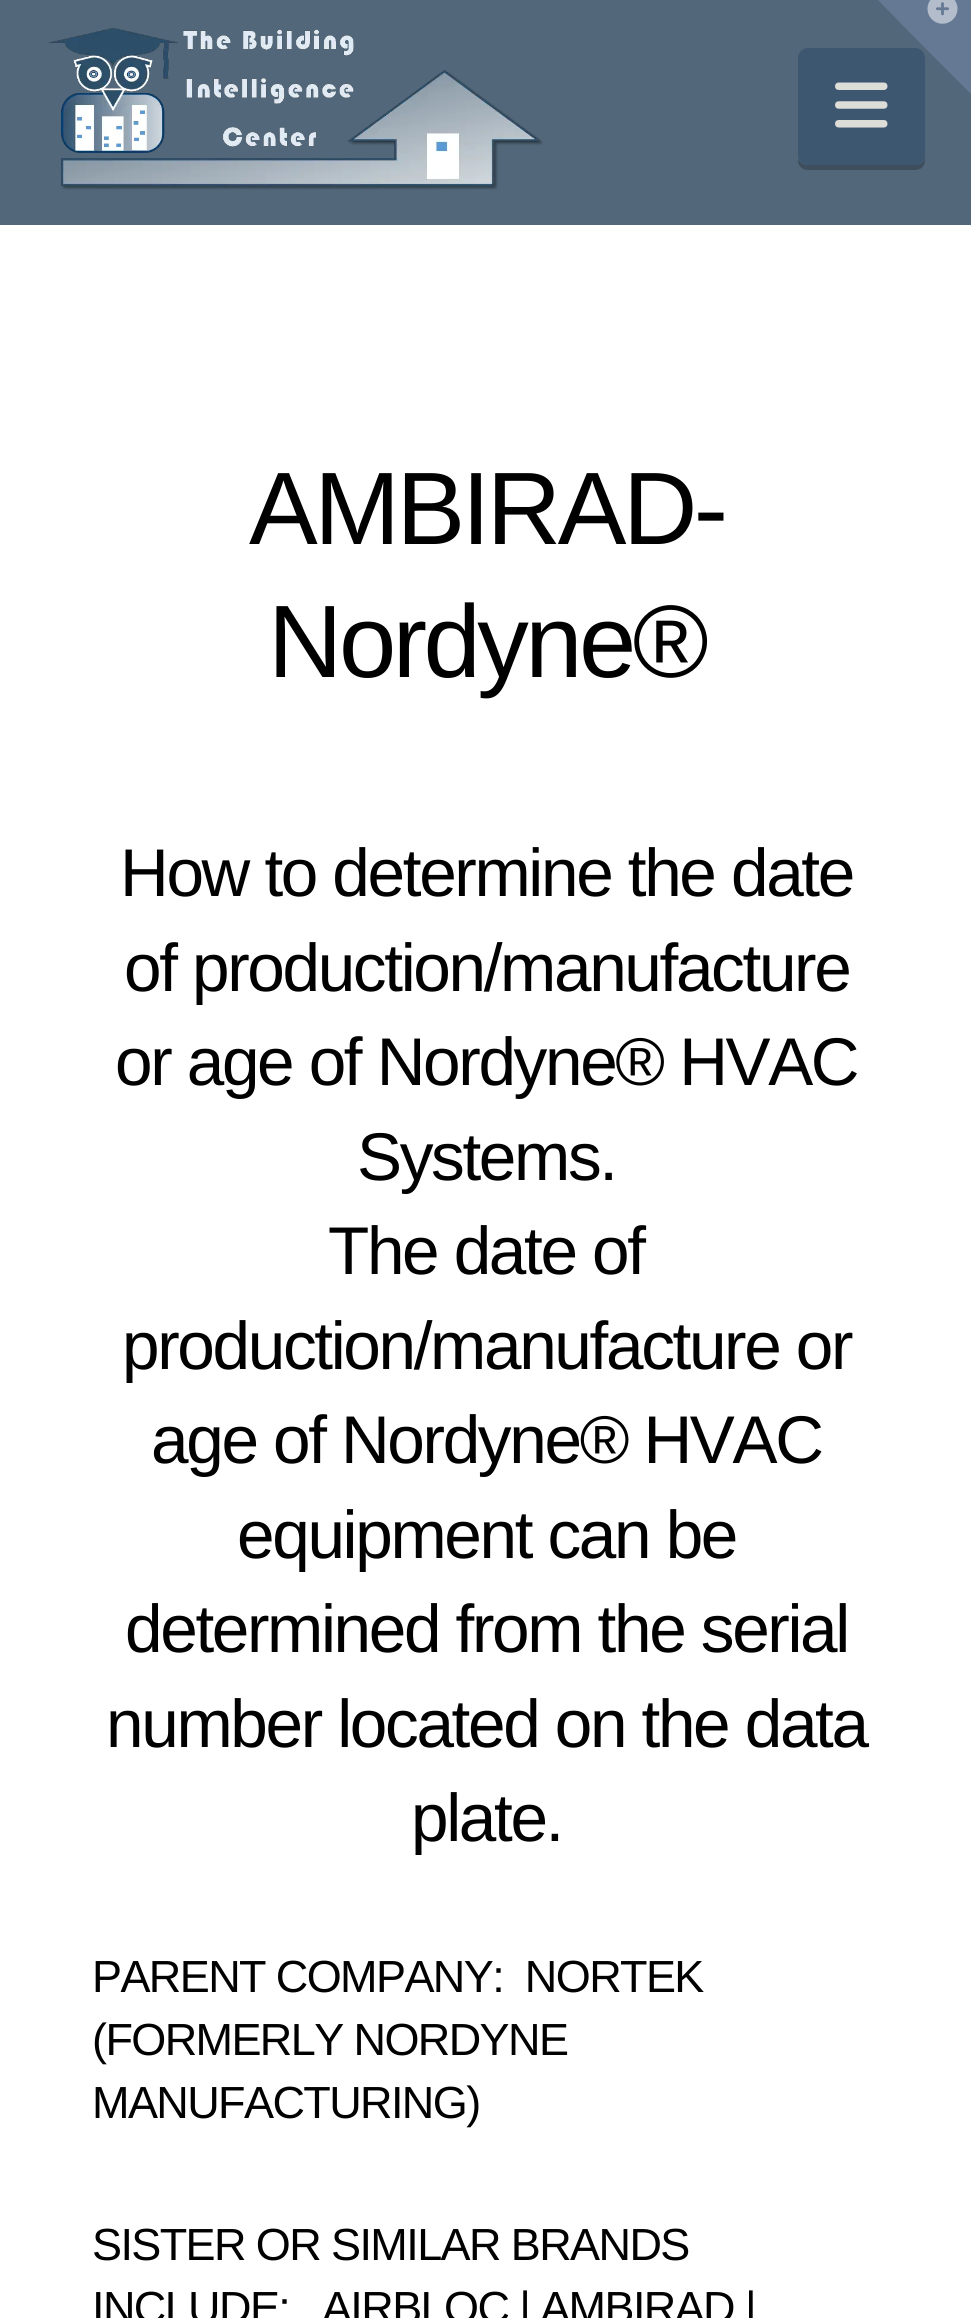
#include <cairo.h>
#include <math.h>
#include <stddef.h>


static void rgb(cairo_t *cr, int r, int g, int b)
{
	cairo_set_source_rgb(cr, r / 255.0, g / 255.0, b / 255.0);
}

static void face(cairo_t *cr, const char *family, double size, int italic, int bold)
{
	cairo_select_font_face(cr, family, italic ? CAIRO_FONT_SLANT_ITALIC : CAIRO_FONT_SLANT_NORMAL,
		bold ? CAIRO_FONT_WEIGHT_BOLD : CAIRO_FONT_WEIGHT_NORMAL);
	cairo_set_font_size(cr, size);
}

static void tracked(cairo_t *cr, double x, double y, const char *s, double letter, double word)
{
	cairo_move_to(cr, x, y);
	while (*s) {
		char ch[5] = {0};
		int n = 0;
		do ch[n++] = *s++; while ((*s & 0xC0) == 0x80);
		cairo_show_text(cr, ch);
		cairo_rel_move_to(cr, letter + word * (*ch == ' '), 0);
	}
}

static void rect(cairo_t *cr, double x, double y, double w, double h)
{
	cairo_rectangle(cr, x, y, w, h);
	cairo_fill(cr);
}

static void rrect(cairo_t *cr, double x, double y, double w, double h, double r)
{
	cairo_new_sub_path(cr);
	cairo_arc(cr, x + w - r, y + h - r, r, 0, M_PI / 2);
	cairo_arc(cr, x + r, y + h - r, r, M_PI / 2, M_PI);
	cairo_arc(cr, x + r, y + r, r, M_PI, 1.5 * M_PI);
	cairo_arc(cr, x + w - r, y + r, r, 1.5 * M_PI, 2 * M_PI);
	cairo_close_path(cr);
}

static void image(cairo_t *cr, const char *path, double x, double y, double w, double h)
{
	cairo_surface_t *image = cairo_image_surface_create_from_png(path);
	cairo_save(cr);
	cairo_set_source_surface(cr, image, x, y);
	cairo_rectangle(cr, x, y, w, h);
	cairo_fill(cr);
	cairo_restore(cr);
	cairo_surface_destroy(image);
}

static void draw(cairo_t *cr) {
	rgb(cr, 255, 255, 255);
	cairo_paint(cr);
	rgb(cr, 82, 104, 122);
	rect(cr, 0, 0, 971, 225);
	rgb(cr, 101, 121, 149);
	cairo_new_path(cr);
	cairo_move_to(cr, 878, 0);
	cairo_line_to(cr, 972, 0);
	cairo_line_to(cr, 925, 48);
	cairo_close_path(cr);
	cairo_fill(cr);
	cairo_new_path(cr);
	cairo_move_to(cr, 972, 0);
	cairo_line_to(cr, 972, 95);
	cairo_line_to(cr, 925, 48);
	cairo_close_path(cr);
	cairo_fill(cr);
	image(cr, "image0.png", 927, 0, 31, 24);
	image(cr, "image1.png", 48, 28, 495, 162);
	rgb(cr, 62, 78, 92);
	cairo_new_path(cr);
	cairo_move_to(cr, 798, 158);
	cairo_line_to(cr, 798, 160);
	cairo_curve_to(cr, 798, 166, 802, 170, 808, 170);
	cairo_line_to(cr, 915, 170);
	cairo_curve_to(cr, 921, 170, 925, 166, 925, 160);
	cairo_line_to(cr, 925, 155);
	cairo_curve_to(cr, 925, 161, 921, 165, 915, 165);
	cairo_line_to(cr, 808, 165);
	cairo_curve_to(cr, 803, 165, 799, 162, 798, 158);
	cairo_close_path(cr);
	cairo_fill(cr);
	rgb(cr, 62, 87, 113);
	rrect(cr, 798, 48, 127, 117, 10);
	cairo_fill(cr);
	image(cr, "image2.png", 835, 82, 53, 46);
	face(cr, "Liberation Sans", 103, 0, 0);
	rgb(cr, 0, 0, 0);
	tracked(cr, 249, 544, "AMBIRAD-", -3.5, 0);
	tracked(cr, 268, 677, "Nordyne®", -3.5, 0);
	face(cr, "Liberation Sans", 67.5, 0, 0);
	tracked(cr, 120, 896, "How to determine the date", -2.35, 0);
	tracked(cr, 124, 991, "of production/manufacture", -2.35, 0);
	tracked(cr, 115, 1085, "or age of Nordyne® HVAC", -2.35, 0);
	tracked(cr, 357, 1180, "Systems.", -2.35, 0);
	tracked(cr, 328, 1274, "The date of", -2.35, 0);
	tracked(cr, 122, 1369, "production/manufacture or", -2.35, 0);
	tracked(cr, 151, 1463, "age of Nordyne® HVAC", -2.35, 0);
	tracked(cr, 237, 1558, "equipment can be", -2.35, 0);
	tracked(cr, 125, 1652, "determined from the serial", -2.35, 0);
	tracked(cr, 106, 1747, "number located on the data", -2.35, 0);
	tracked(cr, 411, 1841, "plate.", -2.35, 0);
	face(cr, "Liberation Sans", 45, 0, 0);
	tracked(cr, 92, 1992, "PARENT COMPANY:  NORTEK", -1.6, 0);
	tracked(cr, 92, 2055, "(FORMERLY NORDYNE", -1.6, 0);
	tracked(cr, 92, 2118, "MANUFACTURING)", -1.6, 0);
	tracked(cr, 92, 2260, "SISTER OR SIMILAR BRANDS", -1.6, 0);
	tracked(cr, 92, 2323, "INCLUDE:   AIRBLOC | AMBIRAD |", -1.6, 0);
}

int main(void) {
	cairo_surface_t *surface = cairo_image_surface_create(CAIRO_FORMAT_RGB24, 971, 2318);
	cairo_t *cr = cairo_create(surface);
	cairo_font_options_t *options = cairo_font_options_create();
	cairo_font_options_set_hint_metrics(options, CAIRO_HINT_METRICS_OFF);
	cairo_font_options_set_hint_style(options, CAIRO_HINT_STYLE_NONE);
	cairo_set_font_options(cr, options);
	cairo_set_miter_limit(cr, 4);
	draw(cr);
	cairo_surface_write_to_png(surface, "render.png");
	cairo_font_options_destroy(options);
	cairo_destroy(cr);
	cairo_surface_destroy(surface);
	return 0;
}
